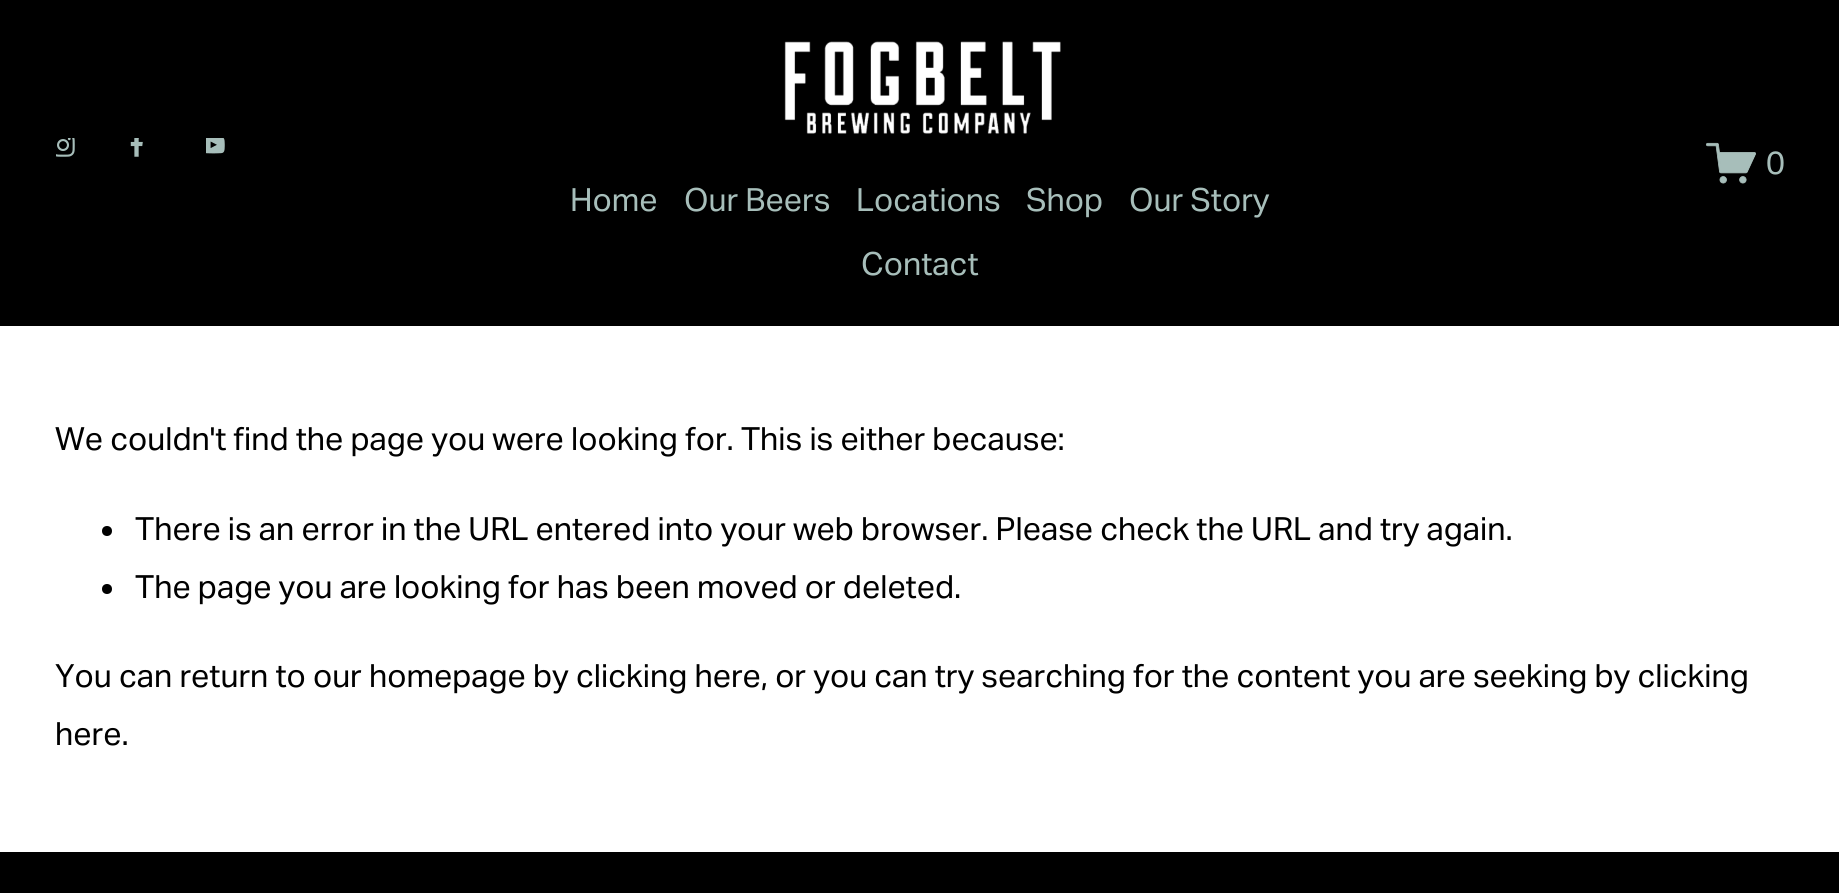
#include <cairo.h>
#include <math.h>
#include <stddef.h>


static void rgb(cairo_t *cr, int r, int g, int b)
{
	cairo_set_source_rgb(cr, r / 255.0, g / 255.0, b / 255.0);
}

static void face(cairo_t *cr, const char *family, double size, int italic, int bold)
{
	cairo_select_font_face(cr, family, italic ? CAIRO_FONT_SLANT_ITALIC : CAIRO_FONT_SLANT_NORMAL,
		bold ? CAIRO_FONT_WEIGHT_BOLD : CAIRO_FONT_WEIGHT_NORMAL);
	cairo_set_font_size(cr, size);
}

static void label(cairo_t *cr, double x, double y, const char *s)
{
	cairo_move_to(cr, x, y);
	cairo_show_text(cr, s);
}

static void rect(cairo_t *cr, double x, double y, double w, double h)
{
	cairo_rectangle(cr, x, y, w, h);
	cairo_fill(cr);
}

static void image(cairo_t *cr, const char *path, double x, double y, double w, double h)
{
	cairo_surface_t *image = cairo_image_surface_create_from_png(path);
	cairo_save(cr);
	cairo_set_source_surface(cr, image, x, y);
	cairo_rectangle(cr, x, y, w, h);
	cairo_fill(cr);
	cairo_restore(cr);
	cairo_surface_destroy(image);
}

static void draw(cairo_t *cr) {
	rgb(cr, 255, 255, 255);
	cairo_paint(cr);
	rgb(cr, 0, 0, 0);
	rect(cr, 0, 0, 1839, 326);
	image(cr, "image0.png", 56, 138, 19, 19);
	image(cr, "image1.png", 130, 138, 13, 19);
	image(cr, "image2.png", 206, 138, 19, 16);
	image(cr, "image3.png", 1706, 142, 50, 42);
	face(cr, "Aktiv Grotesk", 32, 0, 0);
	rgb(cr, 167, 190, 186);
	label(cr, 1766, 174, "0");
	image(cr, "image4.png", 784, 41, 277, 93);
	label(cr, 570, 211, "Home");
	label(cr, 684, 211, "Our Beers");
	label(cr, 856, 211, "Locations");
	label(cr, 1026, 211, "Shop");
	label(cr, 1129, 211, "Our Story");
	label(cr, 861, 275, "Contact");
	rgb(cr, 0, 0, 0);
	label(cr, 55, 450, "We couldn't find the page you were looking for. This is either because:");
	cairo_new_path(cr);
	cairo_arc(cr, 107, 531, 5, 0, 2 * M_PI);
	cairo_fill(cr);
	label(cr, 135, 540, "There is an error in the URL entered into your web browser. Please check the URL and try again.");
	cairo_new_path(cr);
	cairo_arc(cr, 107, 589, 5, 0, 2 * M_PI);
	cairo_fill(cr);
	label(cr, 135, 598, "The page you are looking for has been moved or deleted.");
	label(cr, 55, 687, "You can return to our homepage by clicking here, or you can try searching for the content you are seeking by clicking");
	label(cr, 55, 745, "here.");
	rect(cr, 0, 852, 1839, 41);
}

int main(void) {
	cairo_surface_t *surface = cairo_image_surface_create(CAIRO_FORMAT_RGB24, 1839, 893);
	cairo_t *cr = cairo_create(surface);
	cairo_font_options_t *options = cairo_font_options_create();
	cairo_font_options_set_hint_metrics(options, CAIRO_HINT_METRICS_OFF);
	cairo_font_options_set_hint_style(options, CAIRO_HINT_STYLE_NONE);
	cairo_set_font_options(cr, options);
	cairo_set_miter_limit(cr, 4);
	draw(cr);
	cairo_surface_write_to_png(surface, "render.png");
	cairo_font_options_destroy(options);
	cairo_destroy(cr);
	cairo_surface_destroy(surface);
	return 0;
}
